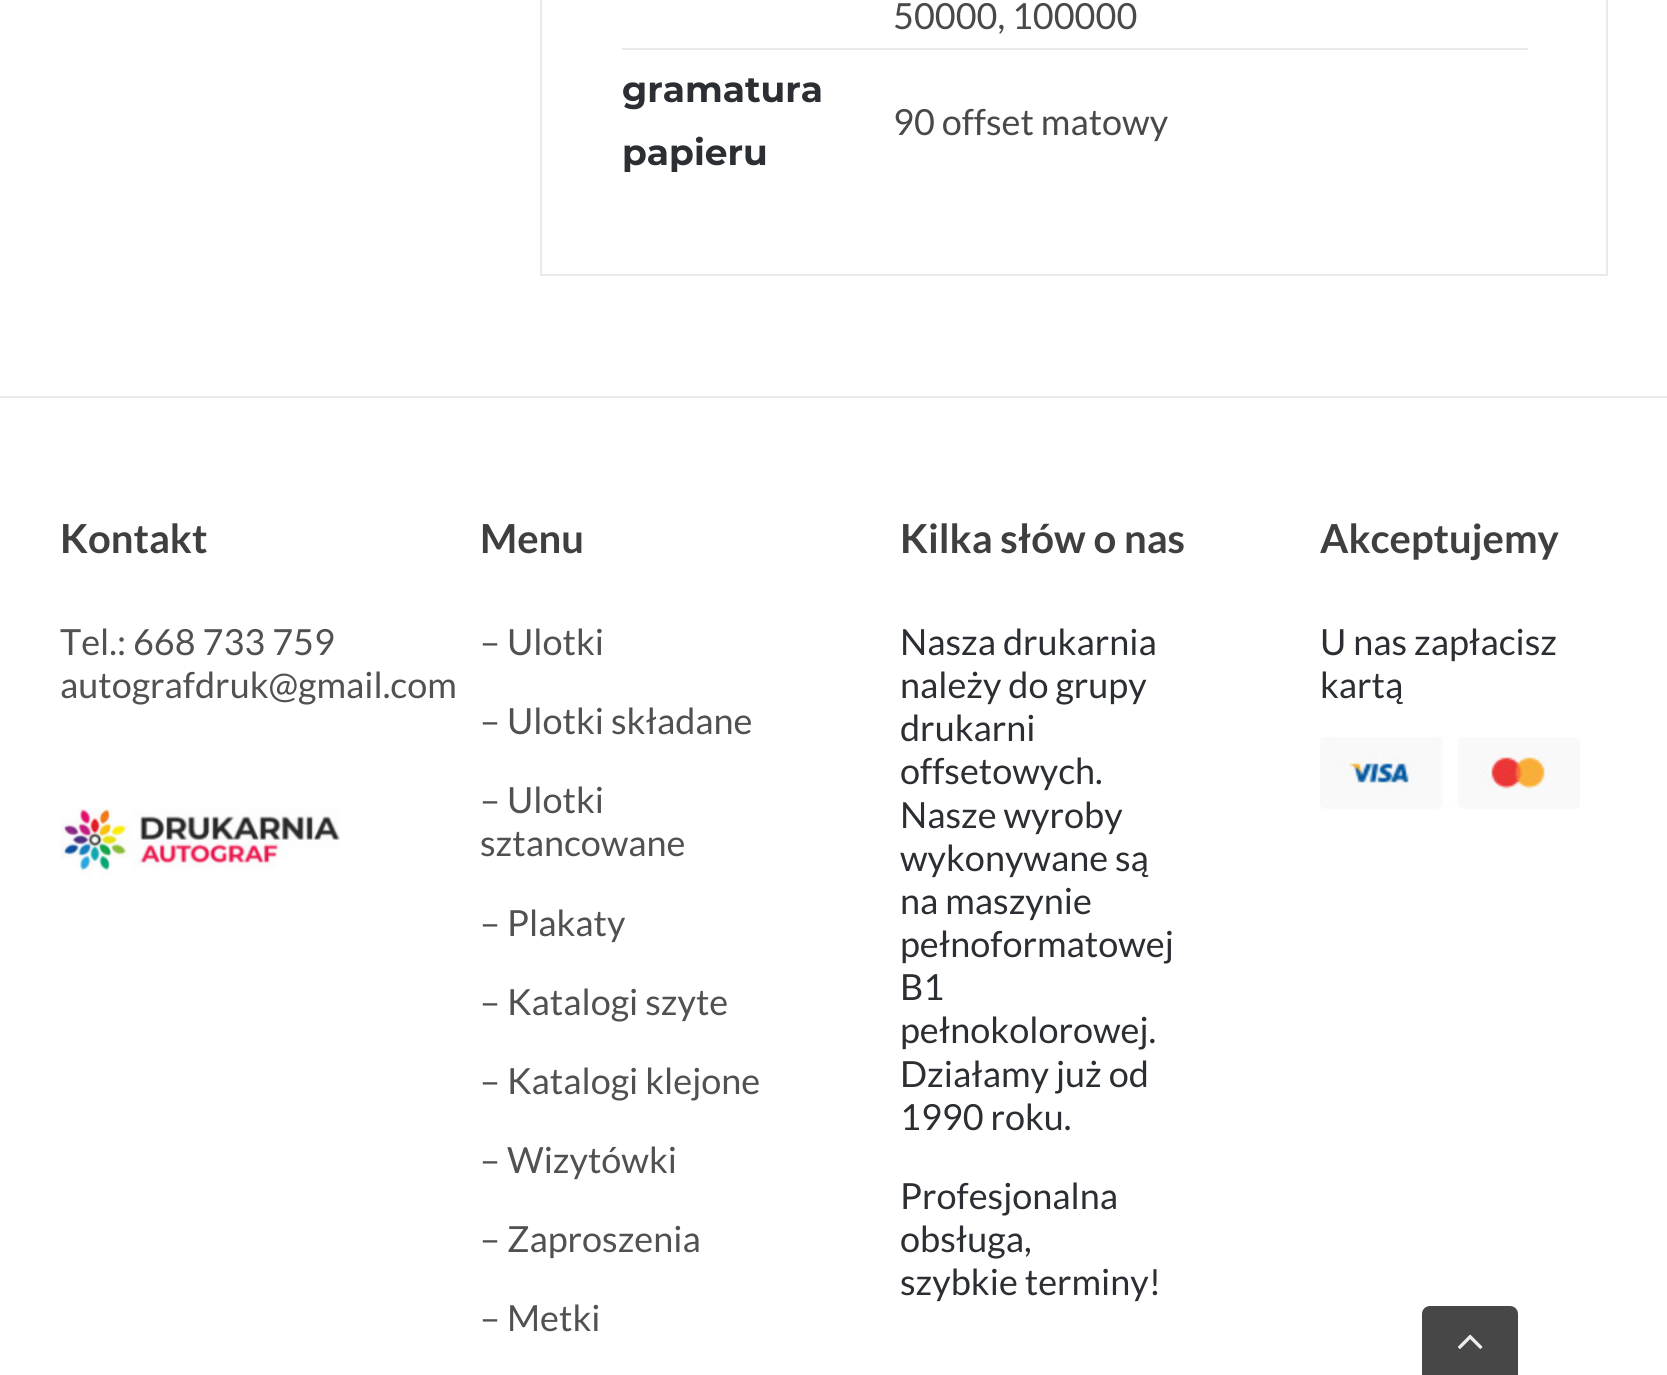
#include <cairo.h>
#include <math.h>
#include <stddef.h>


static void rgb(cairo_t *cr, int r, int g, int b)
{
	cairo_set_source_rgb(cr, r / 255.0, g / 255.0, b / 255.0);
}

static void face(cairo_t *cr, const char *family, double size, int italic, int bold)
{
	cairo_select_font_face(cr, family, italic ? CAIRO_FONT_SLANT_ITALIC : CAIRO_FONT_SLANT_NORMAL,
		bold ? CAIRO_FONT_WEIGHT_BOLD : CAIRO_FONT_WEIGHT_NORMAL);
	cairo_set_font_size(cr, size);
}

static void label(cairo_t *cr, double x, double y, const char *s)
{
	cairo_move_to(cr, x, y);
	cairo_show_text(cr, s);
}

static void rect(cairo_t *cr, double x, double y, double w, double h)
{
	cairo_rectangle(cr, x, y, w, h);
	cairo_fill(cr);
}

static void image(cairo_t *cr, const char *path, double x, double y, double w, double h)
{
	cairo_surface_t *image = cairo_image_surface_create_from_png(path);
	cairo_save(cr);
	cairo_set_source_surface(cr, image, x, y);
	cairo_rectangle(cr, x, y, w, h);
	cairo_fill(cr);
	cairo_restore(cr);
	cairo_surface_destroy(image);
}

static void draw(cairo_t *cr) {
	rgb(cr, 255, 255, 255);
	cairo_paint(cr);
	cairo_rectangle(cr, 541, -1, 1066, 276);
	rgb(cr, 234, 234, 234);
	cairo_stroke(cr);
	rect(cr, 622, 48, 906, 2);
	face(cr, "Lato", 36, 0, 0);
	rgb(cr, 73, 73, 73);
	label(cr, 893, 29, "50000, 100000");
	face(cr, "Montserrat", 36, 0, 1);
	rgb(cr, 43, 46, 50);
	label(cr, 622, 102, "gramatura");
	label(cr, 622, 165, "papieru");
	face(cr, "Lato", 36, 0, 0);
	rgb(cr, 73, 73, 73);
	label(cr, 893, 135, "90 offset matowy");
	rgb(cr, 234, 234, 234);
	rect(cr, 0, 396, 1667, 2);
	face(cr, "Lato", 40, 0, 1);
	rgb(cr, 63, 63, 63);
	label(cr, 60, 553, "Kontakt");
	face(cr, "Lato", 36, 0, 0);
	rgb(cr, 81, 81, 81);
	label(cr, 60, 655, "Tel.: 668 733 759");
	label(cr, 60, 698, "autografdruk@gmail.com");
	image(cr, "image0.png", 60, 808, 280, 69);
	face(cr, "Lato", 40, 0, 1);
	rgb(cr, 63, 63, 63);
	label(cr, 480, 553, "Menu");
	face(cr, "Lato", 36, 0, 0);
	rgb(cr, 81, 81, 81);
	label(cr, 480, 655, "– Ulotki");
	label(cr, 480, 734, "– Ulotki składane");
	label(cr, 480, 813, "– Ulotki");
	label(cr, 480, 856, "sztancowane");
	label(cr, 480, 936, "– Plakaty");
	label(cr, 480, 1015, "– Katalogi szyte");
	label(cr, 480, 1094, "– Katalogi klejone");
	label(cr, 480, 1173, "– Wizytówki");
	label(cr, 480, 1252, "– Zaproszenia");
	label(cr, 480, 1331, "– Metki");
	face(cr, "Lato", 40, 0, 1);
	rgb(cr, 63, 63, 63);
	label(cr, 900, 553, "Kilka słów o nas");
	face(cr, "Lato", 36, 0, 0);
	rgb(cr, 43, 46, 50);
	label(cr, 900, 655, "Nasza drukarnia");
	label(cr, 900, 698, "należy do grupy");
	label(cr, 900, 741, "drukarni");
	label(cr, 900, 784, "offsetowych.");
	label(cr, 900, 828, "Nasze wyroby");
	label(cr, 900, 871, "wykonywane są");
	label(cr, 900, 914, "na maszynie");
	label(cr, 900, 957, "pełnoformatowej");
	label(cr, 900, 1000, "B1");
	label(cr, 900, 1043, "pełnokolorowej.");
	label(cr, 900, 1087, "Działamy już od");
	label(cr, 900, 1130, "1990 roku.");
	label(cr, 900, 1209, "Profesjonalna");
	label(cr, 900, 1252, "obsługa,");
	label(cr, 900, 1295, "szybkie terminy!");
	face(cr, "Lato", 40, 0, 1);
	rgb(cr, 63, 63, 63);
	label(cr, 1320, 553, "Akceptujemy");
	face(cr, "Lato", 36, 0, 0);
	rgb(cr, 43, 46, 50);
	label(cr, 1320, 655, "U nas zapłacisz");
	label(cr, 1320, 698, "kartą");
	image(cr, "image1.png", 1320, 737, 260, 72);
	rgb(cr, 71, 71, 71);
	cairo_new_path(cr);
	cairo_move_to(cr, 1430, 1306);
	cairo_line_to(cr, 1510, 1306);
	cairo_curve_to(cr, 1514.5, 1306, 1518, 1309.5, 1518, 1314);
	cairo_line_to(cr, 1518, 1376);
	cairo_line_to(cr, 1422, 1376);
	cairo_line_to(cr, 1422, 1314);
	cairo_curve_to(cr, 1422, 1309.5, 1425.5, 1306, 1430, 1306);
	cairo_close_path(cr);
	cairo_fill(cr);
	image(cr, "image2.png", 1458, 1334, 25, 15);
}

int main(void) {
	cairo_surface_t *surface = cairo_image_surface_create(CAIRO_FORMAT_RGB24, 1667, 1375);
	cairo_t *cr = cairo_create(surface);
	cairo_font_options_t *options = cairo_font_options_create();
	cairo_font_options_set_hint_metrics(options, CAIRO_HINT_METRICS_OFF);
	cairo_font_options_set_hint_style(options, CAIRO_HINT_STYLE_NONE);
	cairo_set_font_options(cr, options);
	cairo_set_miter_limit(cr, 4);
	draw(cr);
	cairo_surface_write_to_png(surface, "render.png");
	cairo_font_options_destroy(options);
	cairo_destroy(cr);
	cairo_surface_destroy(surface);
	return 0;
}
